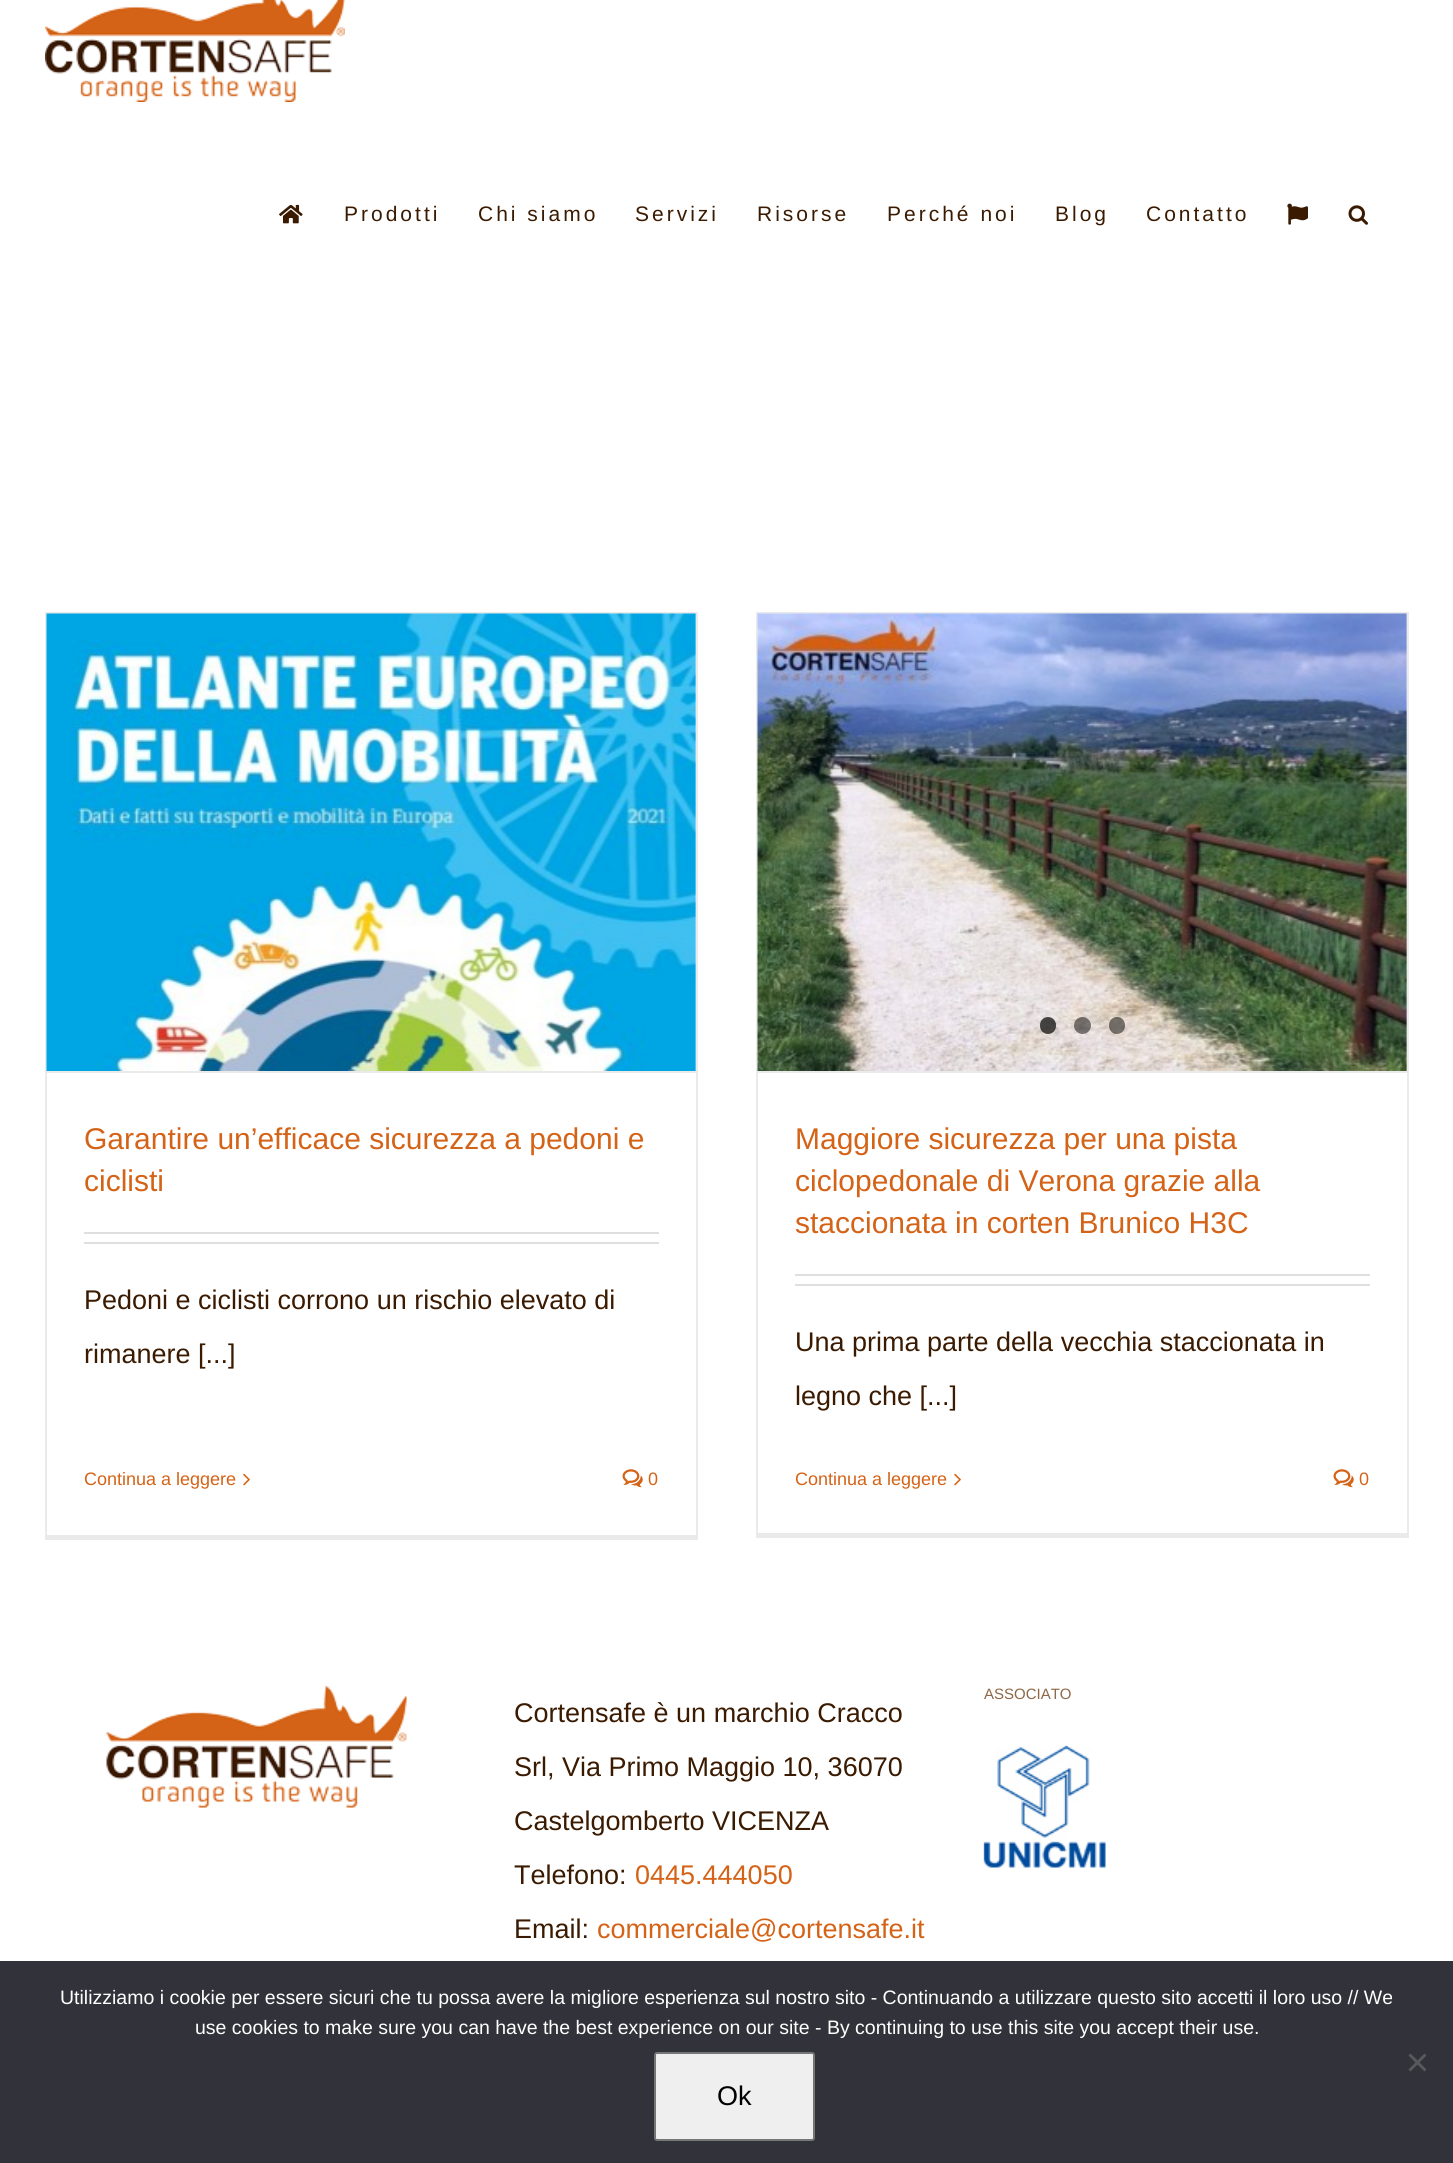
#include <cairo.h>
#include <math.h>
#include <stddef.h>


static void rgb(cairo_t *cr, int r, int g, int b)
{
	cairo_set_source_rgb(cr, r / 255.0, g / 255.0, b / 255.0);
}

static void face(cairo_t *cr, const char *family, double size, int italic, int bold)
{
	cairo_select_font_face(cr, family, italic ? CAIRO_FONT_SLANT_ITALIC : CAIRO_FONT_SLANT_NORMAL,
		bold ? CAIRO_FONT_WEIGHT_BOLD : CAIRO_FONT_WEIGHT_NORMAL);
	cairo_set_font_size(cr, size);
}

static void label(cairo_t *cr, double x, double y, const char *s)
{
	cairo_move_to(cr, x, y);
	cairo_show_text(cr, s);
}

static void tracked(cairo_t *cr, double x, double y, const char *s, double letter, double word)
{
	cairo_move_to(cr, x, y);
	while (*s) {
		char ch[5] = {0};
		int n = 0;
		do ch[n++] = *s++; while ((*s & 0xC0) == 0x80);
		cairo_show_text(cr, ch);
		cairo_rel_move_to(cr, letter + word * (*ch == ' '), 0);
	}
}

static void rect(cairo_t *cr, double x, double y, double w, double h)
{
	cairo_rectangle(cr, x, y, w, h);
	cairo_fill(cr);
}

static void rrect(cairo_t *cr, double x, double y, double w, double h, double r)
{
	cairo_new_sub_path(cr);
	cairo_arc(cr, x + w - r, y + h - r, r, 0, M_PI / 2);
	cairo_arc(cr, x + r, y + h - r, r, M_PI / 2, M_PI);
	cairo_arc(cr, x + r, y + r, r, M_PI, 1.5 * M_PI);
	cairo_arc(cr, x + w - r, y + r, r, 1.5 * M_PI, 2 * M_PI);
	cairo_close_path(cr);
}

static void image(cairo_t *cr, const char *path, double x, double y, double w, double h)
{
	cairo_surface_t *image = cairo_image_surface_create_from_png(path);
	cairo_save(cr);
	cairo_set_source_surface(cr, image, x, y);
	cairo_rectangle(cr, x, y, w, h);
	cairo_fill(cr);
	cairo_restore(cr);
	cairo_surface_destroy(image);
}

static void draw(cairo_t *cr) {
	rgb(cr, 255, 255, 255);
	cairo_paint(cr);
	image(cr, "image0.png", 45, 0, 300, 102);
	image(cr, "image1.png", 279, 204, 24, 20);
	face(cr, "Liberation Sans", 21, 0, 0);
	rgb(cr, 58, 26, 0);
	tracked(cr, 344, 221, "Prodotti", 3, 0);
	tracked(cr, 478, 221, "Chi siamo", 3, 0);
	tracked(cr, 635, 221, "Servizi", 3, 0);
	tracked(cr, 757, 221, "Risorse", 3, 0);
	tracked(cr, 887, 221, "Perché noi", 3, 0);
	tracked(cr, 1055, 221, "Blog", 3, 0);
	tracked(cr, 1146, 221, "Contatto", 3, 0);
	image(cr, "image2.png", 1287, 203, 21, 22);
	image(cr, "image3.png", 1348, 205, 20, 20);
	rgb(cr, 235, 234, 234);
	rect(cr, 45, 612, 653, 2);
	rect(cr, 696, 612, 2, 927);
	rect(cr, 45, 1535, 653, 5);
	rect(cr, 45, 612, 2, 927);
	rect(cr, 47, 1071, 649, 2);
	image(cr, "image4.png", 46, 613, 650, 458);
	face(cr, "Liberation Sans", 30, 0, 0);
	rgb(cr, 212, 99, 23);
	label(cr, 84, 1149, "Garantire un’efficace sicurezza a pedoni e");
	label(cr, 84, 1191, "ciclisti");
	rgb(cr, 224, 222, 222);
	rect(cr, 84, 1232, 575, 2);
	rect(cr, 84, 1242, 575, 2);
	face(cr, "Liberation Sans", 27, 0, 0);
	rgb(cr, 58, 26, 0);
	label(cr, 84, 1309, "Pedoni e ciclisti corrono un rischio elevato di");
	label(cr, 84, 1363, "rimanere [...]");
	face(cr, "Liberation Sans", 18, 0, 0);
	rgb(cr, 212, 99, 23);
	label(cr, 84, 1485, "Continua a leggere");
	image(cr, "image5.png", 243, 1473, 7, 13);
	image(cr, "image6.png", 622, 1469, 21, 19);
	label(cr, 648, 1485, "0");
	rgb(cr, 235, 234, 234);
	rect(cr, 756, 612, 653, 2);
	rect(cr, 1407, 612, 2, 926);
	rect(cr, 756, 1533, 653, 5);
	rect(cr, 756, 612, 2, 926);
	rect(cr, 758, 1071, 649, 2);
	image(cr, "image7.png", 757, 613, 650, 458);
	cairo_set_source_rgba(cr, 0, 0, 0, 0.7);
	rrect(cr, 1040, 1017, 16, 17, 8);
	cairo_fill(cr);
	cairo_set_source_rgba(cr, 0, 0, 0, 0.5);
	cairo_arc(cr, 1082.5, 1025.5, 8.5, 0, 2 * M_PI);
	cairo_fill(cr);
	rrect(cr, 1109, 1017, 16, 17, 8);
	cairo_fill(cr);
	face(cr, "Liberation Sans", 30, 0, 0);
	rgb(cr, 212, 99, 23);
	label(cr, 795, 1149, "Maggiore sicurezza per una pista");
	label(cr, 795, 1191, "ciclopedonale di Verona grazie alla");
	label(cr, 795, 1233, "staccionata in corten Brunico H3C");
	rgb(cr, 224, 222, 222);
	rect(cr, 795, 1274, 575, 2);
	rect(cr, 795, 1284, 575, 2);
	face(cr, "Liberation Sans", 27, 0, 0);
	rgb(cr, 58, 26, 0);
	label(cr, 795, 1351, "Una prima parte della vecchia staccionata in");
	label(cr, 795, 1405, "legno che [...]");
	face(cr, "Liberation Sans", 18, 0, 0);
	rgb(cr, 212, 99, 23);
	label(cr, 795, 1485, "Continua a leggere");
	image(cr, "image5.png", 954, 1473, 7, 13);
	image(cr, "image6.png", 1333, 1469, 21, 19);
	label(cr, 1359, 1485, "0");
	image(cr, "image8.png", 106, 1685, 301, 123);
	face(cr, "Liberation Sans", 15, 0, 0);
	rgb(cr, 142, 103, 69);
	label(cr, 984, 1699, "ASSOCIATO");
	image(cr, "image9.png", 983, 1745, 123, 123);
	face(cr, "Liberation Sans", 27, 0, 0);
	rgb(cr, 58, 26, 0);
	label(cr, 514, 1722, "Cortensafe è un marchio Cracco");
	label(cr, 514, 1776, "Srl, Via Primo Maggio 10, 36070");
	label(cr, 514, 1830, "Castelgomberto VICENZA");
	label(cr, 514, 1884, "Telefono:");
	rgb(cr, 212, 99, 23);
	label(cr, 635, 1884, "0445.444050");
	rgb(cr, 58, 26, 0);
	label(cr, 514, 1938, "Email:");
	rgb(cr, 212, 99, 23);
	label(cr, 597, 1938, "commerciale@cortensafe.it");
	rgb(cr, 50, 50, 58);
	rect(cr, 0, 1961, 1453, 202);
	face(cr, "Liberation Sans", 19.5, 0, 0);
	rgb(cr, 255, 255, 255);
	label(cr, 60, 2004, "Utilizziamo i cookie per essere sicuri che tu possa avere la migliore esperienza sul nostro sito - Continuando a utilizzare questo sito accetti il loro uso // We");
	label(cr, 195, 2034, "use cookies to make sure you can have the best experience on our site - By continuing to use this site you accept their use.");
	rgb(cr, 89, 89, 93);
	cairo_new_path(cr);
	cairo_move_to(cr, 1424.5, 2053.5);
	cairo_line_to(cr, 1426.5, 2055.5);
	cairo_line_to(cr, 1410.5, 2071.5);
	cairo_line_to(cr, 1408.5, 2069.5);
	cairo_close_path(cr);
	cairo_fill(cr);
	cairo_new_path(cr);
	cairo_move_to(cr, 1408.5, 2055.5);
	cairo_line_to(cr, 1410.5, 2053.5);
	cairo_line_to(cr, 1426.5, 2069.5);
	cairo_line_to(cr, 1424.5, 2071.5);
	cairo_close_path(cr);
	cairo_fill(cr);
	rgb(cr, 239, 239, 239);
	rrect(cr, 655, 2053, 159, 87, 2);
	cairo_fill_preserve(cr);
	rgb(cr, 118, 118, 118);
	cairo_stroke(cr);
	face(cr, "Liberation Sans", 27, 0, 0);
	rgb(cr, 0, 0, 0);
	label(cr, 717, 2105, "Ok");
}

int main(void) {
	cairo_surface_t *surface = cairo_image_surface_create(CAIRO_FORMAT_RGB24, 1453, 2163);
	cairo_t *cr = cairo_create(surface);
	cairo_font_options_t *options = cairo_font_options_create();
	cairo_font_options_set_hint_metrics(options, CAIRO_HINT_METRICS_OFF);
	cairo_font_options_set_hint_style(options, CAIRO_HINT_STYLE_NONE);
	cairo_set_font_options(cr, options);
	cairo_set_miter_limit(cr, 4);
	draw(cr);
	cairo_surface_write_to_png(surface, "render.png");
	cairo_font_options_destroy(options);
	cairo_destroy(cr);
	cairo_surface_destroy(surface);
	return 0;
}
